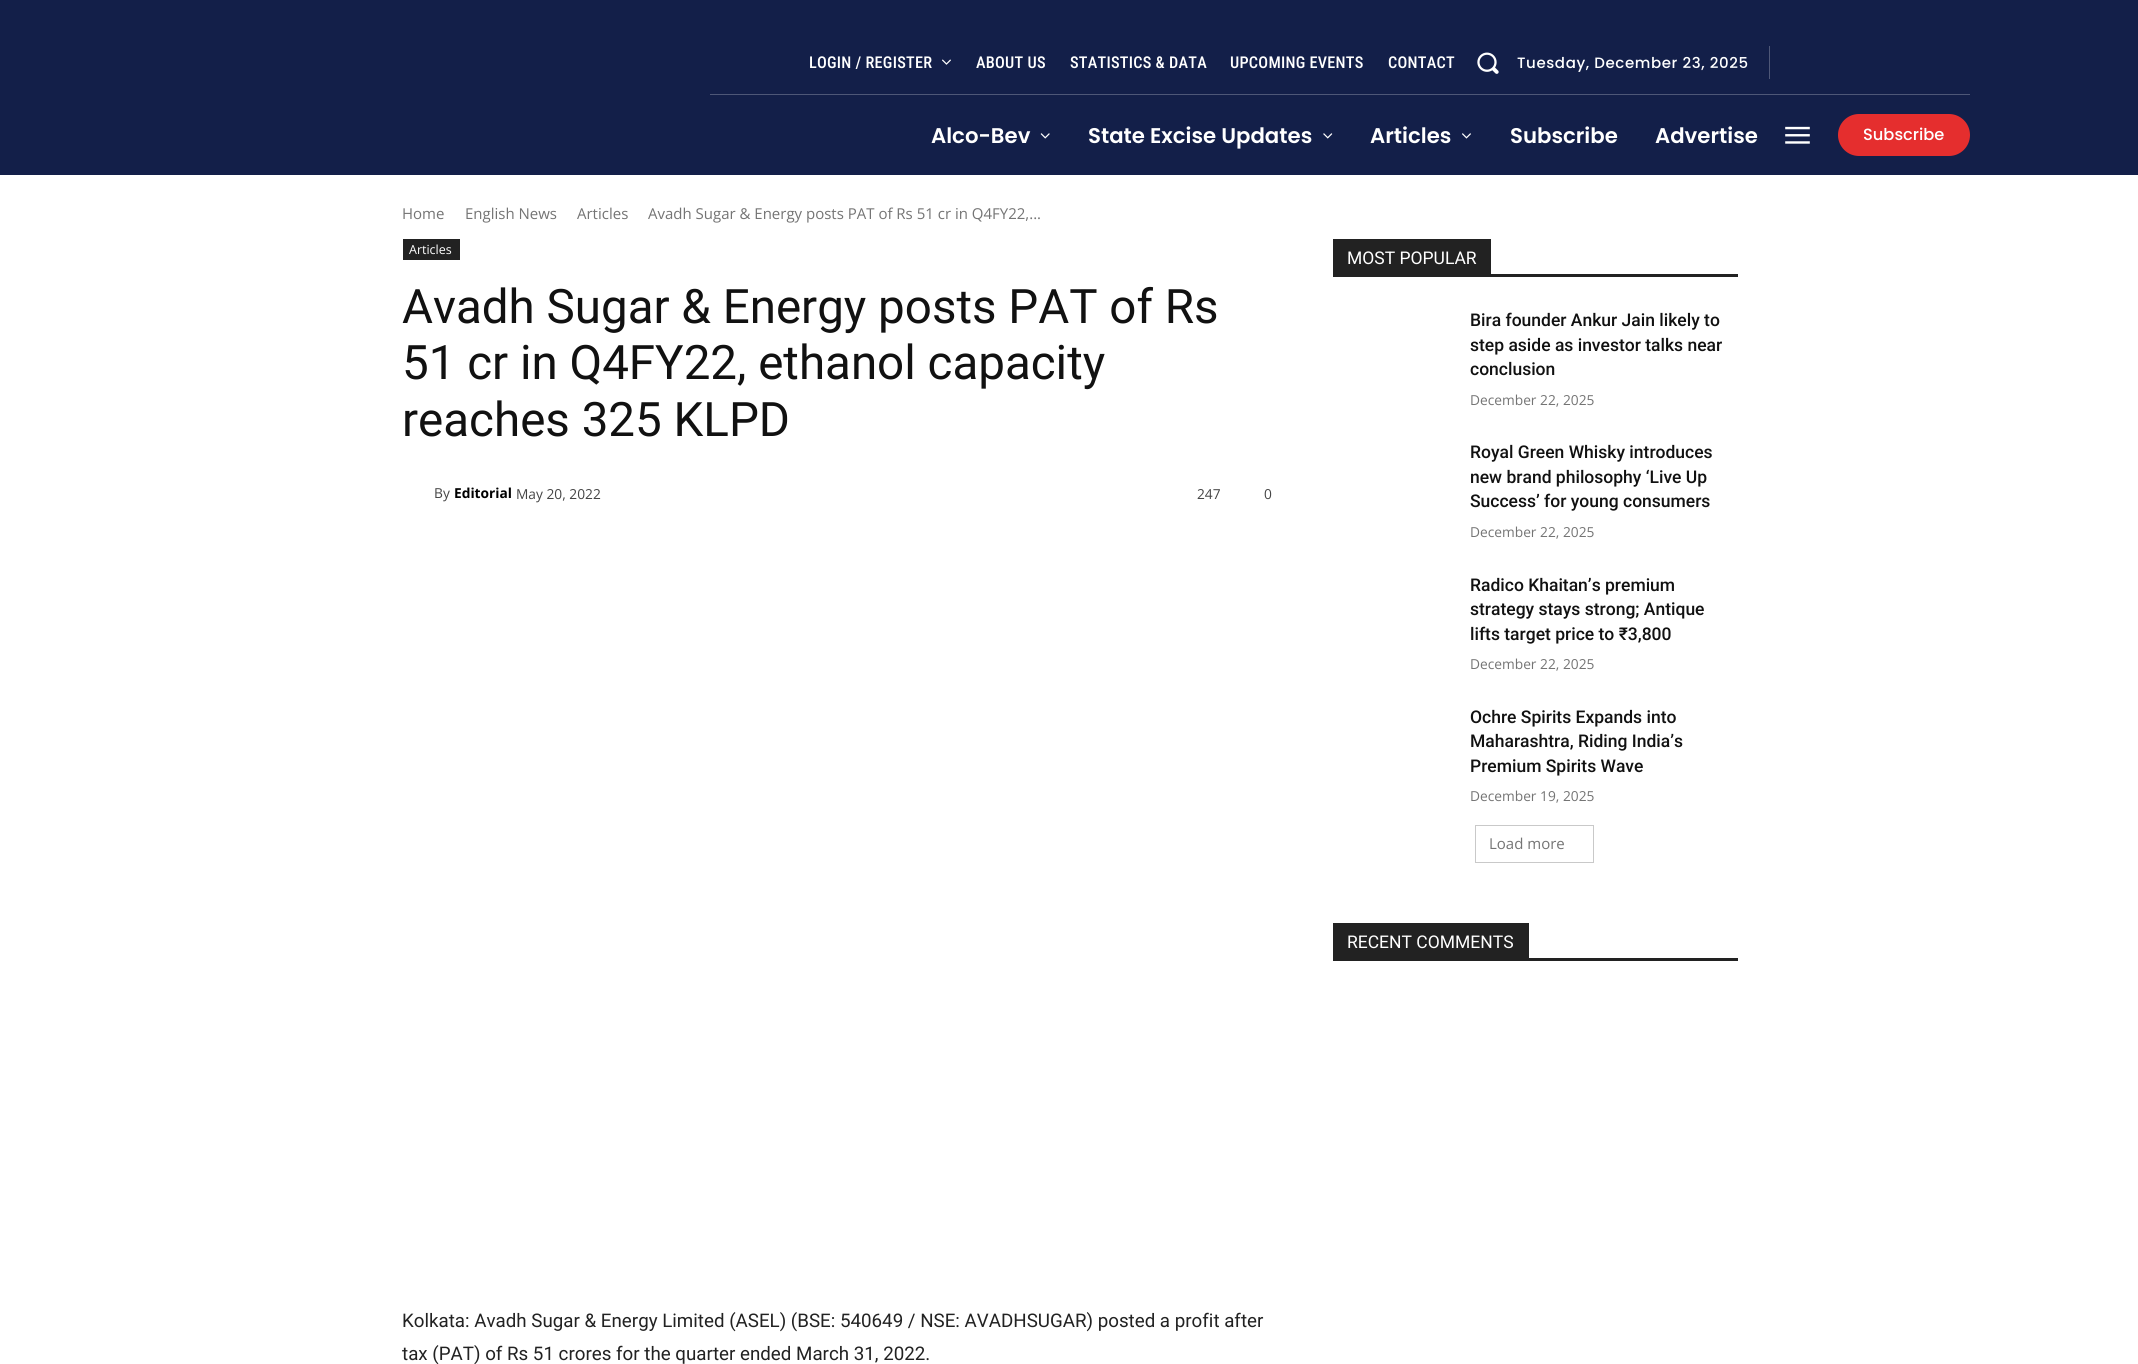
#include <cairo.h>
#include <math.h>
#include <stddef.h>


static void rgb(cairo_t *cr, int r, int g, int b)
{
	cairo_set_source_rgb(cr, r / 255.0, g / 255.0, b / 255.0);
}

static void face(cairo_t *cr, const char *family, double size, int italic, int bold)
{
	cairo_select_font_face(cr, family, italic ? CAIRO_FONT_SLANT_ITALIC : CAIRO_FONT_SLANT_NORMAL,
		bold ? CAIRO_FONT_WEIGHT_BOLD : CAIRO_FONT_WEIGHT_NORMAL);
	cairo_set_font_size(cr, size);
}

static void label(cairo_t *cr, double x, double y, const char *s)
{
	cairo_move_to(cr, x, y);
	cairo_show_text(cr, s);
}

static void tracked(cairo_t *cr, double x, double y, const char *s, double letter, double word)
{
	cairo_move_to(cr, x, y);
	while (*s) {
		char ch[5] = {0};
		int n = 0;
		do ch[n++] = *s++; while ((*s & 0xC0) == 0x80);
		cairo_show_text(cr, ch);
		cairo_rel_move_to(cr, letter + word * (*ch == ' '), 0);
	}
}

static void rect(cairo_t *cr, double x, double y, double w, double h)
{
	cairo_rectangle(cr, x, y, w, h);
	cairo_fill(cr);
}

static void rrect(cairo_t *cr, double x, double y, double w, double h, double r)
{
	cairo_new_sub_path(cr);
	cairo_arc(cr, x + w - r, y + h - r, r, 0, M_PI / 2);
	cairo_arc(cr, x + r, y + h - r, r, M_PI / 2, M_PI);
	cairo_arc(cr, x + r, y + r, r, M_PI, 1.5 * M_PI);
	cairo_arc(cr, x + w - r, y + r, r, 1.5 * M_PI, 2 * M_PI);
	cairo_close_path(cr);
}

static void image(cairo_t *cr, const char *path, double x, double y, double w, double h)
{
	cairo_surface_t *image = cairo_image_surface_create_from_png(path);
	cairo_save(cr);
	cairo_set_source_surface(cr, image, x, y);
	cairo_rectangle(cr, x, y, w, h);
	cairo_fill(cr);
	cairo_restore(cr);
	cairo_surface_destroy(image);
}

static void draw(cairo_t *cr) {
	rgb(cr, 255, 255, 255);
	cairo_paint(cr);
	rgb(cr, 19, 31, 73);
	rect(cr, 0, 0, 2138, 175);
	face(cr, "Roboto Condensed Medium", 16.25, 0, 0);
	rgb(cr, 255, 255, 255);
	tracked(cr, 809, 68, "LOGIN / REGISTER", 0.25, 0);
	image(cr, "image0.png", 942, 59, 9, 6);
	tracked(cr, 976, 68, "ABOUT US", 0.25, 0);
	tracked(cr, 1070, 68, "STATISTICS & DATA", 0.25, 0);
	tracked(cr, 1230, 68, "UPCOMING EVENTS", 0.25, 0);
	tracked(cr, 1388, 68, "CONTACT", 0.25, 0);
	image(cr, "image1.png", 1477, 52, 22, 22);
	face(cr, "Poppins Medium", 15, 0, 0);
	tracked(cr, 1517, 68, "Tuesday, December 23, 2025", 0.6, 0);
	rgb(cr, 78, 87, 119);
	rect(cr, 1769, 46, 1, 33);
	rect(cr, 710, 94, 1260, 1);
	face(cr, "Poppins SemiBold", 21.25, 0, 0);
	rgb(cr, 255, 255, 255);
	label(cr, 931, 143, "Alco-Bev");
	image(cr, "image2.png", 1040, 133, 10, 6);
	label(cr, 1088, 143, "State Excise Updates");
	image(cr, "image3.png", 1323, 133, 10, 6);
	label(cr, 1370, 143, "Articles");
	image(cr, "image4.png", 1462, 133, 9, 6);
	label(cr, 1510, 143, "Subscribe");
	label(cr, 1655, 143, "Advertise");
	image(cr, "image5.png", 1785, 126, 25, 18);
	rgb(cr, 229, 46, 46);
	rrect(cr, 1838, 114, 132, 42, 21);
	cairo_fill(cr);
	face(cr, "Poppins Medium", 16.25, 0, 0);
	rgb(cr, 255, 255, 255);
	label(cr, 1863, 140, "Subscribe");
	face(cr, "Open Sans", 15, 0, 0);
	rgb(cr, 116, 116, 116);
	label(cr, 402, 219, "Home");
	label(cr, 465, 219, "English News");
	label(cr, 577, 219, "Articles");
	label(cr, 648, 219, "Avadh Sugar & Energy posts PAT of Rs 51 cr in Q4FY22,...");
	rgb(cr, 34, 34, 34);
	rect(cr, 403, 239, 57, 21);
	face(cr, "Open Sans", 12.5, 0, 0);
	rgb(cr, 255, 255, 255);
	label(cr, 409, 254, "Articles");
	face(cr, "Roboto", 47.5, 0, 0);
	rgb(cr, 17, 17, 17);
	label(cr, 402, 323, "Avadh Sugar & Energy posts PAT of Rs");
	label(cr, 402, 379, "51 cr in Q4FY22, ethanol capacity");
	label(cr, 402, 436, "reaches 325 KLPD");
	face(cr, "Open Sans", 13.75, 0, 0);
	rgb(cr, 68, 68, 68);
	label(cr, 434, 498, "By");
	face(cr, "Open Sans", 13.75, 0, 1);
	rgb(cr, 0, 0, 0);
	label(cr, 454, 498, "Editorial");
	face(cr, "Open Sans", 13.75, 0, 0);
	rgb(cr, 68, 68, 68);
	label(cr, 516, 499, "May 20, 2022");
	label(cr, 1197, 499, "247");
	label(cr, 1264, 499, "0");
	face(cr, "Roboto", 18.75, 0, 0);
	rgb(cr, 34, 34, 34);
	label(cr, 402, 1327, "Kolkata: Avadh Sugar & Energy Limited (ASEL) (BSE: 540649 / NSE: AVADHSUGAR) posted a profit after");
	label(cr, 402, 1360, "tax (PAT) of Rs 51 crores for the quarter ended March 31, 2022.");
	rect(cr, 1333, 274, 405, 3);
	rect(cr, 1333, 239, 158, 35);
	face(cr, "Roboto", 17.5, 0, 0);
	rgb(cr, 255, 255, 255);
	label(cr, 1347, 264, "MOST POPULAR");
	face(cr, "Roboto Medium", 17.5, 0, 0);
	rgb(cr, 17, 17, 17);
	label(cr, 1470, 326, "Bira founder Ankur Jain likely to");
	label(cr, 1470, 351, "step aside as investor talks near");
	label(cr, 1470, 375, "conclusion");
	face(cr, "Open Sans", 13.75, 0, 0);
	rgb(cr, 116, 116, 116);
	label(cr, 1470, 405, "December 22, 2025");
	face(cr, "Roboto Medium", 17.5, 0, 0);
	rgb(cr, 17, 17, 17);
	label(cr, 1470, 458, "Royal Green Whisky introduces");
	label(cr, 1470, 483, "new brand philosophy ‘Live Up");
	label(cr, 1470, 507, "Success’ for young consumers");
	face(cr, "Open Sans", 13.75, 0, 0);
	rgb(cr, 116, 116, 116);
	label(cr, 1470, 537, "December 22, 2025");
	face(cr, "Roboto Medium", 17.5, 0, 0);
	rgb(cr, 17, 17, 17);
	label(cr, 1470, 591, "Radico Khaitan’s premium");
	label(cr, 1470, 615, "strategy stays strong; Antique");
	label(cr, 1470, 640, "lifts target price to ₹3,800");
	face(cr, "Open Sans", 13.75, 0, 0);
	rgb(cr, 116, 116, 116);
	label(cr, 1470, 669, "December 22, 2025");
	face(cr, "Roboto Medium", 17.5, 0, 0);
	rgb(cr, 17, 17, 17);
	label(cr, 1470, 723, "Ochre Spirits Expands into");
	label(cr, 1470, 747, "Maharashtra, Riding India’s");
	label(cr, 1470, 772, "Premium Spirits Wave");
	face(cr, "Open Sans", 13.75, 0, 0);
	rgb(cr, 116, 116, 116);
	label(cr, 1470, 801, "December 19, 2025");
	cairo_rectangle(cr, 1475.5, 825.5, 118, 37);
	rgb(cr, 201, 201, 201);
	cairo_set_line_width(cr, 1);
	cairo_stroke(cr);
	face(cr, "Open Sans", 15, 0, 0);
	rgb(cr, 116, 116, 116);
	label(cr, 1489, 849, "Load more");
	rgb(cr, 34, 34, 34);
	rect(cr, 1333, 958, 405, 3);
	rect(cr, 1333, 923, 196, 35);
	face(cr, "Roboto", 17.5, 0, 0);
	rgb(cr, 255, 255, 255);
	label(cr, 1347, 948, "RECENT COMMENTS");
}

int main(void) {
	cairo_surface_t *surface = cairo_image_surface_create(CAIRO_FORMAT_RGB24, 2138, 1364);
	cairo_t *cr = cairo_create(surface);
	cairo_font_options_t *options = cairo_font_options_create();
	cairo_font_options_set_hint_metrics(options, CAIRO_HINT_METRICS_OFF);
	cairo_font_options_set_hint_style(options, CAIRO_HINT_STYLE_NONE);
	cairo_set_font_options(cr, options);
	cairo_set_miter_limit(cr, 4);
	draw(cr);
	cairo_surface_write_to_png(surface, "render.png");
	cairo_font_options_destroy(options);
	cairo_destroy(cr);
	cairo_surface_destroy(surface);
	return 0;
}
